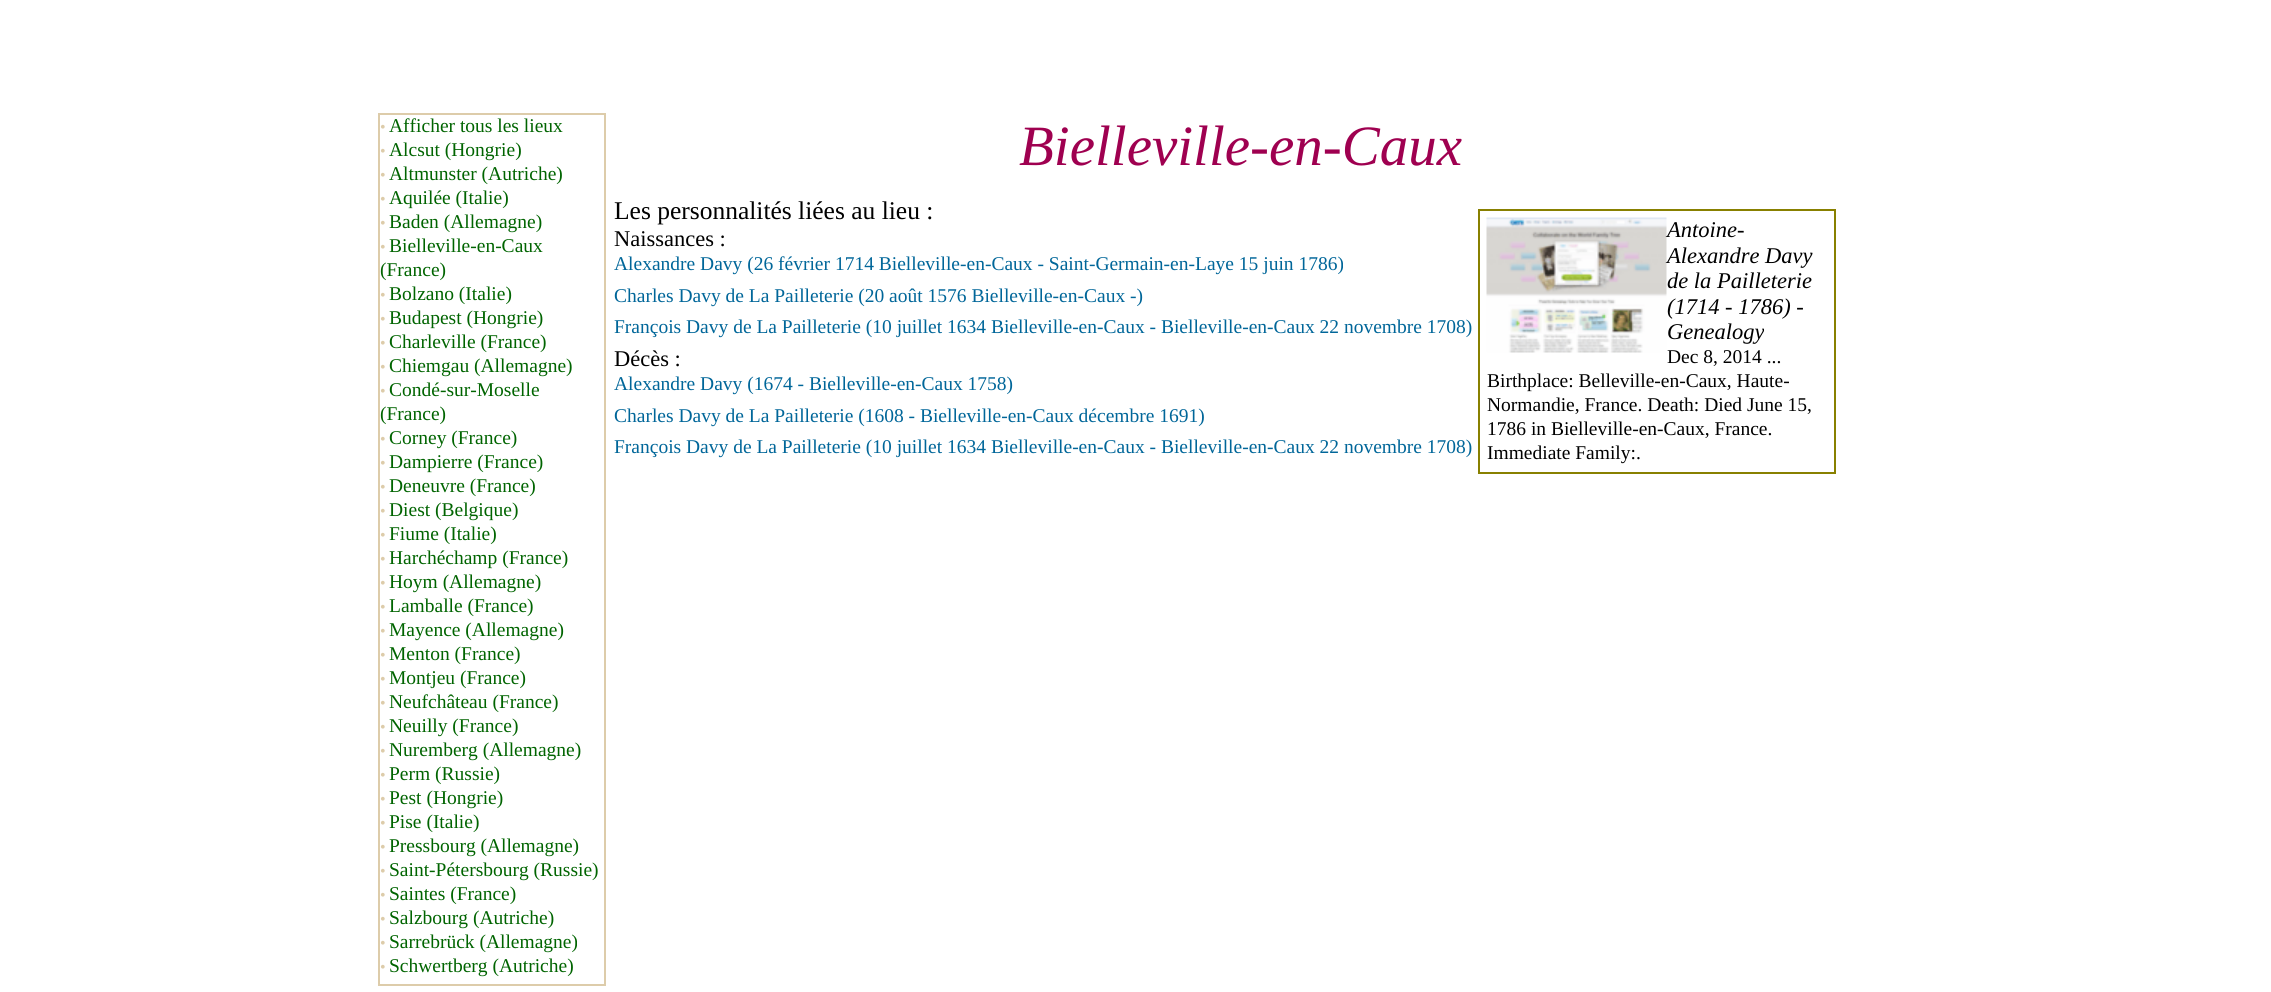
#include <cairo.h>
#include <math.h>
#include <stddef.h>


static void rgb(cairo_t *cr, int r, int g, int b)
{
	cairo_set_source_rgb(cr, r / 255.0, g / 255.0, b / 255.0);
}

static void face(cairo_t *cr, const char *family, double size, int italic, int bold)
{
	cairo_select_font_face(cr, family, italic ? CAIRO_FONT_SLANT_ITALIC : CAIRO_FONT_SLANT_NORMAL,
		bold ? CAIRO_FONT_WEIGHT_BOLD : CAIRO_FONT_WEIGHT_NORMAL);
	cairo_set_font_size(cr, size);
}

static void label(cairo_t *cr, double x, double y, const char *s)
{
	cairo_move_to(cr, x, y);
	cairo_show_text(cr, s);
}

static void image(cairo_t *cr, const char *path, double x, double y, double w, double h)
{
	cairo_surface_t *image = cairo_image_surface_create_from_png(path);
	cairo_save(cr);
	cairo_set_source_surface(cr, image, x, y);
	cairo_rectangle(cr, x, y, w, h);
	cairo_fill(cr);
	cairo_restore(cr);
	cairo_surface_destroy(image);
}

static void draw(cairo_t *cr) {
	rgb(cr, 255, 255, 255);
	cairo_paint(cr);
	cairo_rectangle(cr, 379, 114, 226, 871);
	rgb(cr, 221, 204, 170);
	cairo_stroke(cr);
	face(cr, "Liberation Serif", 16, 0, 0);
	label(cr, 380, 132, "•");
	face(cr, "Liberation Serif", 19.5, 0, 0);
	rgb(cr, 0, 100, 0);
	label(cr, 389, 132, "Afficher tous les lieux");
	face(cr, "Liberation Serif", 16, 0, 0);
	rgb(cr, 221, 204, 170);
	label(cr, 380, 156, "•");
	face(cr, "Liberation Serif", 19.5, 0, 0);
	rgb(cr, 0, 100, 0);
	label(cr, 389, 156, "Alcsut (Hongrie)");
	face(cr, "Liberation Serif", 16, 0, 0);
	rgb(cr, 221, 204, 170);
	label(cr, 380, 180, "•");
	face(cr, "Liberation Serif", 19.5, 0, 0);
	rgb(cr, 0, 100, 0);
	label(cr, 389, 180, "Altmunster (Autriche)");
	face(cr, "Liberation Serif", 16, 0, 0);
	rgb(cr, 221, 204, 170);
	label(cr, 380, 204, "•");
	face(cr, "Liberation Serif", 19.5, 0, 0);
	rgb(cr, 0, 100, 0);
	label(cr, 389, 204, "Aquilée (Italie)");
	face(cr, "Liberation Serif", 16, 0, 0);
	rgb(cr, 221, 204, 170);
	label(cr, 380, 228, "•");
	face(cr, "Liberation Serif", 19.5, 0, 0);
	rgb(cr, 0, 100, 0);
	label(cr, 389, 228, "Baden (Allemagne)");
	face(cr, "Liberation Serif", 16, 0, 0);
	rgb(cr, 221, 204, 170);
	label(cr, 380, 252, "•");
	face(cr, "Liberation Serif", 19.5, 0, 0);
	rgb(cr, 0, 100, 0);
	label(cr, 389, 252, "Bielleville-en-Caux");
	label(cr, 380, 276, "(France)");
	face(cr, "Liberation Serif", 16, 0, 0);
	rgb(cr, 221, 204, 170);
	label(cr, 380, 300, "•");
	face(cr, "Liberation Serif", 19.5, 0, 0);
	rgb(cr, 0, 100, 0);
	label(cr, 389, 300, "Bolzano (Italie)");
	face(cr, "Liberation Serif", 16, 0, 0);
	rgb(cr, 221, 204, 170);
	label(cr, 380, 324, "•");
	face(cr, "Liberation Serif", 19.5, 0, 0);
	rgb(cr, 0, 100, 0);
	label(cr, 389, 324, "Budapest (Hongrie)");
	face(cr, "Liberation Serif", 16, 0, 0);
	rgb(cr, 221, 204, 170);
	label(cr, 380, 348, "•");
	face(cr, "Liberation Serif", 19.5, 0, 0);
	rgb(cr, 0, 100, 0);
	label(cr, 389, 348, "Charleville (France)");
	face(cr, "Liberation Serif", 16, 0, 0);
	rgb(cr, 221, 204, 170);
	label(cr, 380, 372, "•");
	face(cr, "Liberation Serif", 19.5, 0, 0);
	rgb(cr, 0, 100, 0);
	label(cr, 389, 372, "Chiemgau (Allemagne)");
	face(cr, "Liberation Serif", 16, 0, 0);
	rgb(cr, 221, 204, 170);
	label(cr, 380, 396, "•");
	face(cr, "Liberation Serif", 19.5, 0, 0);
	rgb(cr, 0, 100, 0);
	label(cr, 389, 396, "Condé-sur-Moselle");
	label(cr, 380, 420, "(France)");
	face(cr, "Liberation Serif", 16, 0, 0);
	rgb(cr, 221, 204, 170);
	label(cr, 380, 444, "•");
	face(cr, "Liberation Serif", 19.5, 0, 0);
	rgb(cr, 0, 100, 0);
	label(cr, 389, 444, "Corney (France)");
	face(cr, "Liberation Serif", 16, 0, 0);
	rgb(cr, 221, 204, 170);
	label(cr, 380, 468, "•");
	face(cr, "Liberation Serif", 19.5, 0, 0);
	rgb(cr, 0, 100, 0);
	label(cr, 389, 468, "Dampierre (France)");
	face(cr, "Liberation Serif", 16, 0, 0);
	rgb(cr, 221, 204, 170);
	label(cr, 380, 492, "•");
	face(cr, "Liberation Serif", 19.5, 0, 0);
	rgb(cr, 0, 100, 0);
	label(cr, 389, 492, "Deneuvre (France)");
	face(cr, "Liberation Serif", 16, 0, 0);
	rgb(cr, 221, 204, 170);
	label(cr, 380, 516, "•");
	face(cr, "Liberation Serif", 19.5, 0, 0);
	rgb(cr, 0, 100, 0);
	label(cr, 389, 516, "Diest (Belgique)");
	face(cr, "Liberation Serif", 16, 0, 0);
	rgb(cr, 221, 204, 170);
	label(cr, 380, 540, "•");
	face(cr, "Liberation Serif", 19.5, 0, 0);
	rgb(cr, 0, 100, 0);
	label(cr, 389, 540, "Fiume (Italie)");
	face(cr, "Liberation Serif", 16, 0, 0);
	rgb(cr, 221, 204, 170);
	label(cr, 380, 564, "•");
	face(cr, "Liberation Serif", 19.5, 0, 0);
	rgb(cr, 0, 100, 0);
	label(cr, 389, 564, "Harchéchamp (France)");
	face(cr, "Liberation Serif", 16, 0, 0);
	rgb(cr, 221, 204, 170);
	label(cr, 380, 588, "•");
	face(cr, "Liberation Serif", 19.5, 0, 0);
	rgb(cr, 0, 100, 0);
	label(cr, 389, 588, "Hoym (Allemagne)");
	face(cr, "Liberation Serif", 16, 0, 0);
	rgb(cr, 221, 204, 170);
	label(cr, 380, 612, "•");
	face(cr, "Liberation Serif", 19.5, 0, 0);
	rgb(cr, 0, 100, 0);
	label(cr, 389, 612, "Lamballe (France)");
	face(cr, "Liberation Serif", 16, 0, 0);
	rgb(cr, 221, 204, 170);
	label(cr, 380, 636, "•");
	face(cr, "Liberation Serif", 19.5, 0, 0);
	rgb(cr, 0, 100, 0);
	label(cr, 389, 636, "Mayence (Allemagne)");
	face(cr, "Liberation Serif", 16, 0, 0);
	rgb(cr, 221, 204, 170);
	label(cr, 380, 660, "•");
	face(cr, "Liberation Serif", 19.5, 0, 0);
	rgb(cr, 0, 100, 0);
	label(cr, 389, 660, "Menton (France)");
	face(cr, "Liberation Serif", 16, 0, 0);
	rgb(cr, 221, 204, 170);
	label(cr, 380, 684, "•");
	face(cr, "Liberation Serif", 19.5, 0, 0);
	rgb(cr, 0, 100, 0);
	label(cr, 389, 684, "Montjeu (France)");
	face(cr, "Liberation Serif", 16, 0, 0);
	rgb(cr, 221, 204, 170);
	label(cr, 380, 708, "•");
	face(cr, "Liberation Serif", 19.5, 0, 0);
	rgb(cr, 0, 100, 0);
	label(cr, 389, 708, "Neufchâteau (France)");
	face(cr, "Liberation Serif", 16, 0, 0);
	rgb(cr, 221, 204, 170);
	label(cr, 380, 732, "•");
	face(cr, "Liberation Serif", 19.5, 0, 0);
	rgb(cr, 0, 100, 0);
	label(cr, 389, 732, "Neuilly (France)");
	face(cr, "Liberation Serif", 16, 0, 0);
	rgb(cr, 221, 204, 170);
	label(cr, 380, 756, "•");
	face(cr, "Liberation Serif", 19.5, 0, 0);
	rgb(cr, 0, 100, 0);
	label(cr, 389, 756, "Nuremberg (Allemagne)");
	face(cr, "Liberation Serif", 16, 0, 0);
	rgb(cr, 221, 204, 170);
	label(cr, 380, 780, "•");
	face(cr, "Liberation Serif", 19.5, 0, 0);
	rgb(cr, 0, 100, 0);
	label(cr, 389, 780, "Perm (Russie)");
	face(cr, "Liberation Serif", 16, 0, 0);
	rgb(cr, 221, 204, 170);
	label(cr, 380, 804, "•");
	face(cr, "Liberation Serif", 19.5, 0, 0);
	rgb(cr, 0, 100, 0);
	label(cr, 389, 804, "Pest (Hongrie)");
	face(cr, "Liberation Serif", 16, 0, 0);
	rgb(cr, 221, 204, 170);
	label(cr, 380, 828, "•");
	face(cr, "Liberation Serif", 19.5, 0, 0);
	rgb(cr, 0, 100, 0);
	label(cr, 389, 828, "Pise (Italie)");
	face(cr, "Liberation Serif", 16, 0, 0);
	rgb(cr, 221, 204, 170);
	label(cr, 380, 852, "•");
	face(cr, "Liberation Serif", 19.5, 0, 0);
	rgb(cr, 0, 100, 0);
	label(cr, 389, 852, "Pressbourg (Allemagne)");
	face(cr, "Liberation Serif", 16, 0, 0);
	rgb(cr, 221, 204, 170);
	label(cr, 380, 876, "•");
	face(cr, "Liberation Serif", 19.5, 0, 0);
	rgb(cr, 0, 100, 0);
	label(cr, 389, 876, "Saint-Pétersbourg (Russie)");
	face(cr, "Liberation Serif", 16, 0, 0);
	rgb(cr, 221, 204, 170);
	label(cr, 380, 900, "•");
	face(cr, "Liberation Serif", 19.5, 0, 0);
	rgb(cr, 0, 100, 0);
	label(cr, 389, 900, "Saintes (France)");
	face(cr, "Liberation Serif", 16, 0, 0);
	rgb(cr, 221, 204, 170);
	label(cr, 380, 924, "•");
	face(cr, "Liberation Serif", 19.5, 0, 0);
	rgb(cr, 0, 100, 0);
	label(cr, 389, 924, "Salzbourg (Autriche)");
	face(cr, "Liberation Serif", 16, 0, 0);
	rgb(cr, 221, 204, 170);
	label(cr, 380, 948, "•");
	face(cr, "Liberation Serif", 19.5, 0, 0);
	rgb(cr, 0, 100, 0);
	label(cr, 389, 948, "Sarrebrück (Allemagne)");
	face(cr, "Liberation Serif", 16, 0, 0);
	rgb(cr, 221, 204, 170);
	label(cr, 380, 972, "•");
	face(cr, "Liberation Serif", 19.5, 0, 0);
	rgb(cr, 0, 100, 0);
	label(cr, 389, 972, "Schwertberg (Autriche)");
	face(cr, "Liberation Serif", 57, 1, 0);
	rgb(cr, 159, 0, 80);
	label(cr, 1019, 165, "Bielleville-en-Caux");
	face(cr, "Liberation Serif", 25.5, 0, 0);
	rgb(cr, 0, 0, 0);
	label(cr, 614, 219, "Les personnalités liées au lieu :");
	face(cr, "Liberation Serif", 22.5, 0, 0);
	label(cr, 614, 246, "Naissances :");
	face(cr, "Liberation Serif", 19.5, 0, 0);
	rgb(cr, 0, 102, 153);
	label(cr, 614, 270, "Alexandre Davy (26 février 1714 Bielleville-en-Caux - Saint-Germain-en-Laye 15 juin 1786)");
	label(cr, 614, 302, "Charles Davy de La Pailleterie (20 août 1576 Bielleville-en-Caux -)");
	label(cr, 614, 333, "François Davy de La Pailleterie (10 juillet 1634 Bielleville-en-Caux - Bielleville-en-Caux 22 novembre 1708)");
	face(cr, "Liberation Serif", 22.5, 0, 0);
	rgb(cr, 0, 0, 0);
	label(cr, 614, 366, "Décès :");
	face(cr, "Liberation Serif", 19.5, 0, 0);
	rgb(cr, 0, 102, 153);
	label(cr, 614, 390, "Alexandre Davy (1674 - Bielleville-en-Caux 1758)");
	label(cr, 614, 422, "Charles Davy de La Pailleterie (1608 - Bielleville-en-Caux décembre 1691)");
	label(cr, 614, 453, "François Davy de La Pailleterie (10 juillet 1634 Bielleville-en-Caux - Bielleville-en-Caux 22 novembre 1708)");
	cairo_rectangle(cr, 1479, 210, 356, 263);
	rgb(cr, 136, 128, 0);
	cairo_stroke(cr);
	image(cr, "image0.png", 1486, 217, 181, 136);
	face(cr, "Liberation Serif", 22.5, 1, 0);
	rgb(cr, 0, 0, 0);
	label(cr, 1667, 237, "Antoine-");
	label(cr, 1667, 263, "Alexandre Davy");
	label(cr, 1667, 288, "de la Pailleterie");
	label(cr, 1667, 314, "(1714 - 1786) -");
	label(cr, 1667, 339, "Genealogy");
	face(cr, "Liberation Serif", 19.5, 0, 0);
	label(cr, 1667, 363, "Dec 8, 2014 ...");
	label(cr, 1487, 387, "Birthplace: Belleville-en-Caux, Haute-");
	label(cr, 1487, 411, "Normandie, France. Death: Died June 15,");
	label(cr, 1487, 435, "1786 in Bielleville-en-Caux, France.");
	label(cr, 1487, 459, "Immediate Family:.");
}

int main(void) {
	cairo_surface_t *surface = cairo_image_surface_create(CAIRO_FORMAT_RGB24, 2271, 992);
	cairo_t *cr = cairo_create(surface);
	cairo_font_options_t *options = cairo_font_options_create();
	cairo_font_options_set_hint_metrics(options, CAIRO_HINT_METRICS_OFF);
	cairo_font_options_set_hint_style(options, CAIRO_HINT_STYLE_NONE);
	cairo_set_font_options(cr, options);
	cairo_set_miter_limit(cr, 4);
	draw(cr);
	cairo_surface_write_to_png(surface, "render.png");
	cairo_font_options_destroy(options);
	cairo_destroy(cr);
	cairo_surface_destroy(surface);
	return 0;
}
